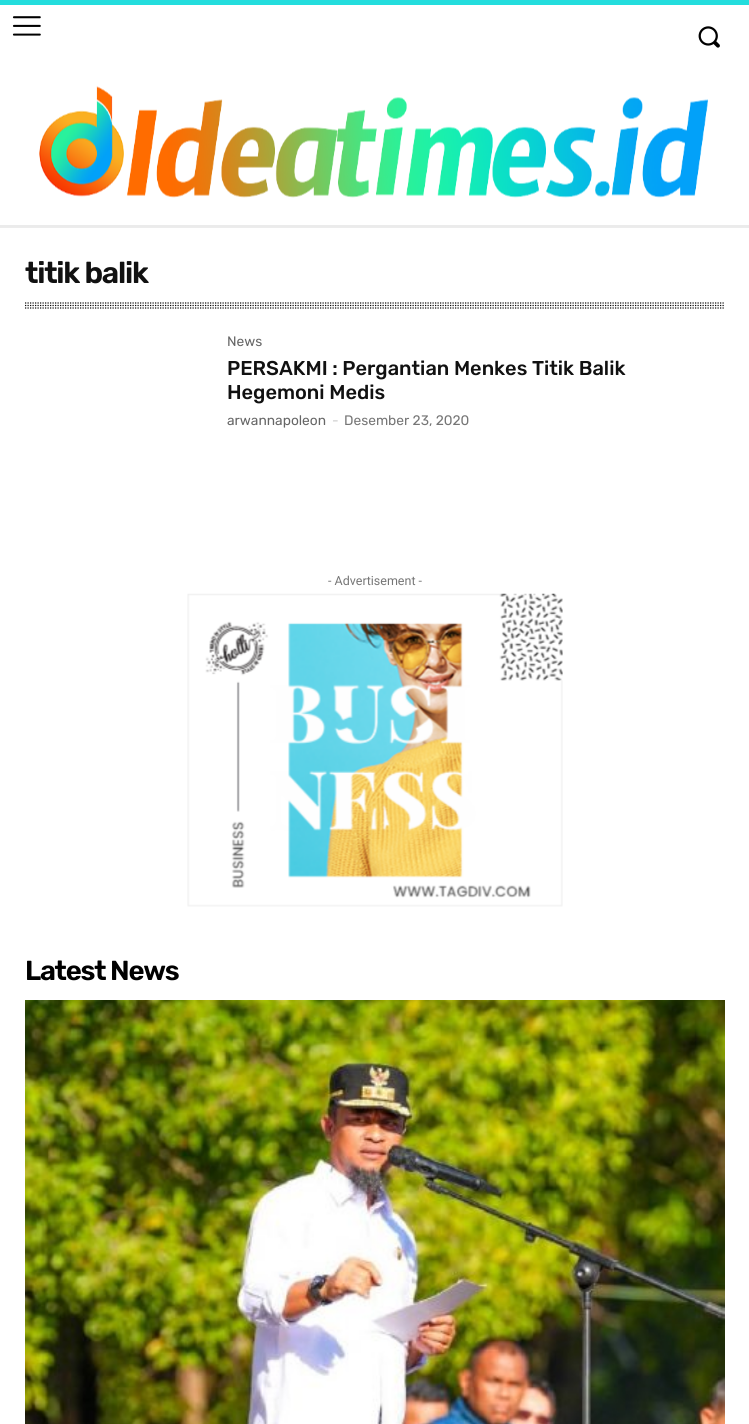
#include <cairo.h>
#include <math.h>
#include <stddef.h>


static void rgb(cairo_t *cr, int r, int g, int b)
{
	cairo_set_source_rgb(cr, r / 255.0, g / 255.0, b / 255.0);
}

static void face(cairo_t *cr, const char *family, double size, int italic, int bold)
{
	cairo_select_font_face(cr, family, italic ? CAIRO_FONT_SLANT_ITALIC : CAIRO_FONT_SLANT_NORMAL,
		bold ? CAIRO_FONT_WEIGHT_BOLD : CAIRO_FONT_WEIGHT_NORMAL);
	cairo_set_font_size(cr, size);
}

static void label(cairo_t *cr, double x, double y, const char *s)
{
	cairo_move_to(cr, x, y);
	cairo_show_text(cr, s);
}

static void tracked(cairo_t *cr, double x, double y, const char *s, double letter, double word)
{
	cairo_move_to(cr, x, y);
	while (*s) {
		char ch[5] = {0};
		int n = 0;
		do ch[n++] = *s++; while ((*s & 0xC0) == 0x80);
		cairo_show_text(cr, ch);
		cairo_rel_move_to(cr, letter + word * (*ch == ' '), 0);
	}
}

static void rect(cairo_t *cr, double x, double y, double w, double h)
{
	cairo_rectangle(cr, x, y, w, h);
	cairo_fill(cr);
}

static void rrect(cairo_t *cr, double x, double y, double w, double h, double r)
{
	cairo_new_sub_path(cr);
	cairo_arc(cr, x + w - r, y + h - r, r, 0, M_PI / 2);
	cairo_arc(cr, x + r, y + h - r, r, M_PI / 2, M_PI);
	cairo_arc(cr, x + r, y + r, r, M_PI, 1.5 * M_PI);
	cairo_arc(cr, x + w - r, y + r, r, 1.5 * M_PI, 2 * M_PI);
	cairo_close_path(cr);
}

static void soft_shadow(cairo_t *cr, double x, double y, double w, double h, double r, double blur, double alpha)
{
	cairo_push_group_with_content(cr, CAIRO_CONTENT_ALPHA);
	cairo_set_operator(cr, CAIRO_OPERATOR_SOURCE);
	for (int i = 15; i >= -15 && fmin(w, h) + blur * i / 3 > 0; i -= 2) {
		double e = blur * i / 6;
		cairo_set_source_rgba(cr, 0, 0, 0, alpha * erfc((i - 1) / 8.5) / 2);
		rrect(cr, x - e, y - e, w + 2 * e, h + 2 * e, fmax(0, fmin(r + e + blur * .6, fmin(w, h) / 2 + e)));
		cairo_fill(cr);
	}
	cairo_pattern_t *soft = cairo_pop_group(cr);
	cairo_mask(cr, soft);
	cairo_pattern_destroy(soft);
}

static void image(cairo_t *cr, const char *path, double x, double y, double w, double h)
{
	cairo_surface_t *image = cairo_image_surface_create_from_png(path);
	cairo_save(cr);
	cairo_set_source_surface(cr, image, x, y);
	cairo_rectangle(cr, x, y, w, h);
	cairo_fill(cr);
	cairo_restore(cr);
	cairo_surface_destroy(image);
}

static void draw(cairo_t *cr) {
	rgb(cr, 255, 255, 255);
	cairo_paint(cr);
	rgb(cr, 35, 221, 221);
	rect(cr, 0, 0, 749, 5);
	image(cr, "image0.png", 12, 16, 29, 20);
	image(cr, "image1.png", 698, 26, 22, 22);
	image(cr, "image2.png", 39, 86, 669, 112);
	cairo_save(cr);
	cairo_rectangle(cr, 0, 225, 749, 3);
	cairo_clip(cr);
	rgb(cr, 0, 0, 0);
	soft_shadow(cr, -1, 0, 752, 228, 0, 0.5, 0.08);
	cairo_restore(cr);
	face(cr, "Rubik SemiBold", 30, 0, 0);
	rgb(cr, 17, 17, 17);
	tracked(cr, 25, 283, "titik balik", -1.25, 0);
	cairo_new_path(cr);
	cairo_move_to(cr, 25, 303);
	cairo_line_to(cr, 725, 303);
	rgb(cr, 10, 10, 10);
	cairo_set_line_width(cr, 1.2);
	cairo_set_dash(cr, (double[]){1.25, 1.25}, 2, 0);
	cairo_stroke(cr);
	cairo_new_path(cr);
	cairo_move_to(cr, 25, 305.5);
	cairo_line_to(cr, 725, 305.5);
	cairo_stroke(cr);
	cairo_new_path(cr);
	cairo_move_to(cr, 25, 308);
	cairo_line_to(cr, 725, 308);
	cairo_stroke(cr);
	face(cr, "Rubik", 13.75, 0, 0);
	rgb(cr, 102, 102, 102);
	label(cr, 227, 346, "News");
	face(cr, "Rubik Medium", 20, 0, 0);
	rgb(cr, 17, 17, 17);
	label(cr, 227, 375, "PERSAKMI : Pergantian Menkes Titik Balik");
	label(cr, 227, 399, "Hegemoni Medis");
	face(cr, "Rubik", 13.75, 0, 0);
	rgb(cr, 102, 102, 102);
	label(cr, 227, 425, "arwannapoleon");
	rgb(cr, 204, 204, 204);
	label(cr, 332, 425, "-");
	rgb(cr, 118, 118, 118);
	label(cr, 344, 425, "Desember 23, 2020");
	face(cr, "Roboto", 12.5, 0, 0);
	label(cr, 328, 585, "- Advertisement -");
	image(cr, "image3.png", 187, 593, 376, 314);
	face(cr, "Rubik SemiBold", 27.5, 0, 0);
	rgb(cr, 0, 0, 0);
	tracked(cr, 25, 980, "Latest News", -1.25, 0);
	image(cr, "image4.png", 25, 1000, 700, 424);
}

int main(void) {
	cairo_surface_t *surface = cairo_image_surface_create(CAIRO_FORMAT_RGB24, 749, 1424);
	cairo_t *cr = cairo_create(surface);
	cairo_font_options_t *options = cairo_font_options_create();
	cairo_font_options_set_hint_metrics(options, CAIRO_HINT_METRICS_OFF);
	cairo_font_options_set_hint_style(options, CAIRO_HINT_STYLE_NONE);
	cairo_set_font_options(cr, options);
	cairo_set_miter_limit(cr, 4);
	draw(cr);
	cairo_surface_write_to_png(surface, "render.png");
	cairo_font_options_destroy(options);
	cairo_destroy(cr);
	cairo_surface_destroy(surface);
	return 0;
}
